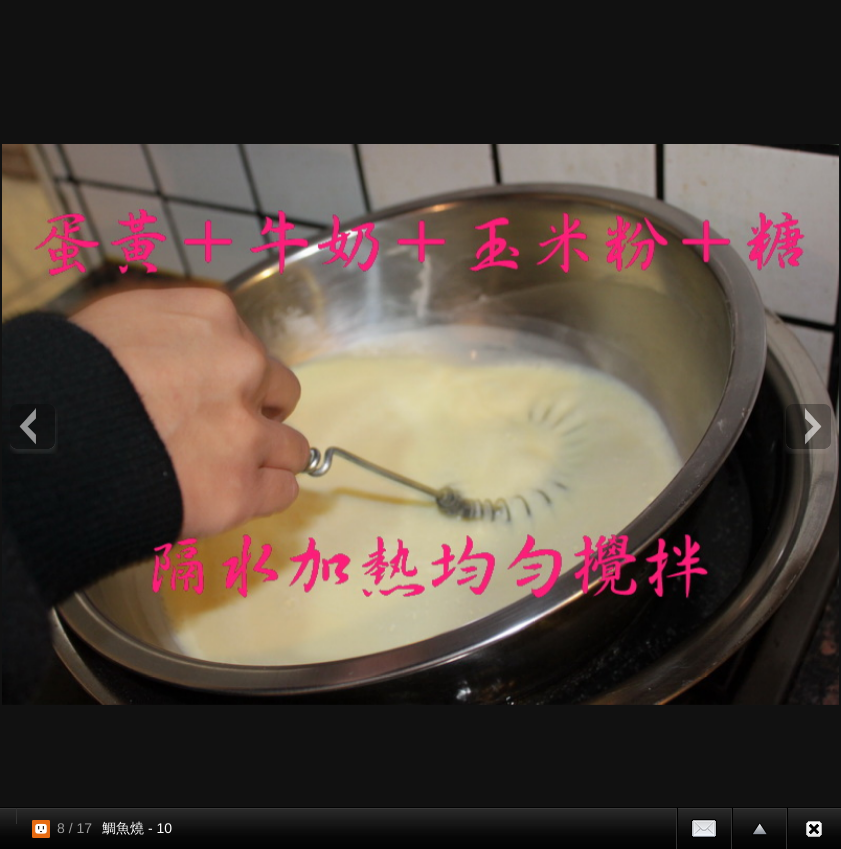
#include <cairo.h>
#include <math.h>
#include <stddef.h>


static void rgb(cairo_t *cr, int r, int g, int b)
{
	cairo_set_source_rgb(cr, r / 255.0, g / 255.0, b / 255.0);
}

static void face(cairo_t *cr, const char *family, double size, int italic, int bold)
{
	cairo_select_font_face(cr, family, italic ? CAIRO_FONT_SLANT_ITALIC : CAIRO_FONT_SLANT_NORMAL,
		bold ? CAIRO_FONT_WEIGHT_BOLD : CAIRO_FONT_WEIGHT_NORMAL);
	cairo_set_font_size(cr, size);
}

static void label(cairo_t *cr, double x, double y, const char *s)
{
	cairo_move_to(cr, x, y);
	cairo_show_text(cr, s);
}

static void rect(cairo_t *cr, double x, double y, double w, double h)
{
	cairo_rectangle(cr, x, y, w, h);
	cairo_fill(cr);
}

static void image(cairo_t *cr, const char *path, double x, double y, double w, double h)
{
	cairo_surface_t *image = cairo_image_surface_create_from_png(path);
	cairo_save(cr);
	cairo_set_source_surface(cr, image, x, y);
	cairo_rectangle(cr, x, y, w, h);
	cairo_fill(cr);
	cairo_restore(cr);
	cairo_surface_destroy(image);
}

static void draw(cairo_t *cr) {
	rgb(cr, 17, 17, 17);
	cairo_paint(cr);
	image(cr, "image0.png", 2, 144, 838, 561);
	image(cr, "image1.png", 10, 404, 48, 50);
	image(cr, "image2.png", 783, 404, 48, 50);
	image(cr, "image3.png", 0, 807, 841, 42);
	rgb(cr, 51, 51, 51);
	rect(cr, 16, 808, 1, 16);
	image(cr, "image4.png", 32, 820, 18, 18);
	face(cr, "Liberation Sans", 14, 0, 0);
	rgb(cr, 153, 153, 153);
	label(cr, 57, 833, "8 / 17");
	face(cr, "WenQuanYi Zen Hei Medium", 14, 0, 0);
	rgb(cr, 255, 255, 255);
	label(cr, 102, 833, "鯛魚燒");
	face(cr, "Liberation Sans", 14, 0, 0);
	label(cr, 148, 833, "- 10");
	rgb(cr, 51, 51, 51);
	rect(cr, 676, 808, 1, 41);
	image(cr, "image5.png", 677, 808, 40, 36);
	rect(cr, 731, 808, 1, 41);
	image(cr, "image6.png", 732, 808, 35, 36);
	rect(cr, 786, 808, 1, 41);
	image(cr, "image7.png", 787, 808, 35, 36);
}

int main(void) {
	cairo_surface_t *surface = cairo_image_surface_create(CAIRO_FORMAT_RGB24, 841, 849);
	cairo_t *cr = cairo_create(surface);
	cairo_font_options_t *options = cairo_font_options_create();
	cairo_font_options_set_hint_metrics(options, CAIRO_HINT_METRICS_OFF);
	cairo_font_options_set_hint_style(options, CAIRO_HINT_STYLE_NONE);
	cairo_set_font_options(cr, options);
	cairo_set_miter_limit(cr, 4);
	draw(cr);
	cairo_surface_write_to_png(surface, "render.png");
	cairo_font_options_destroy(options);
	cairo_destroy(cr);
	cairo_surface_destroy(surface);
	return 0;
}
